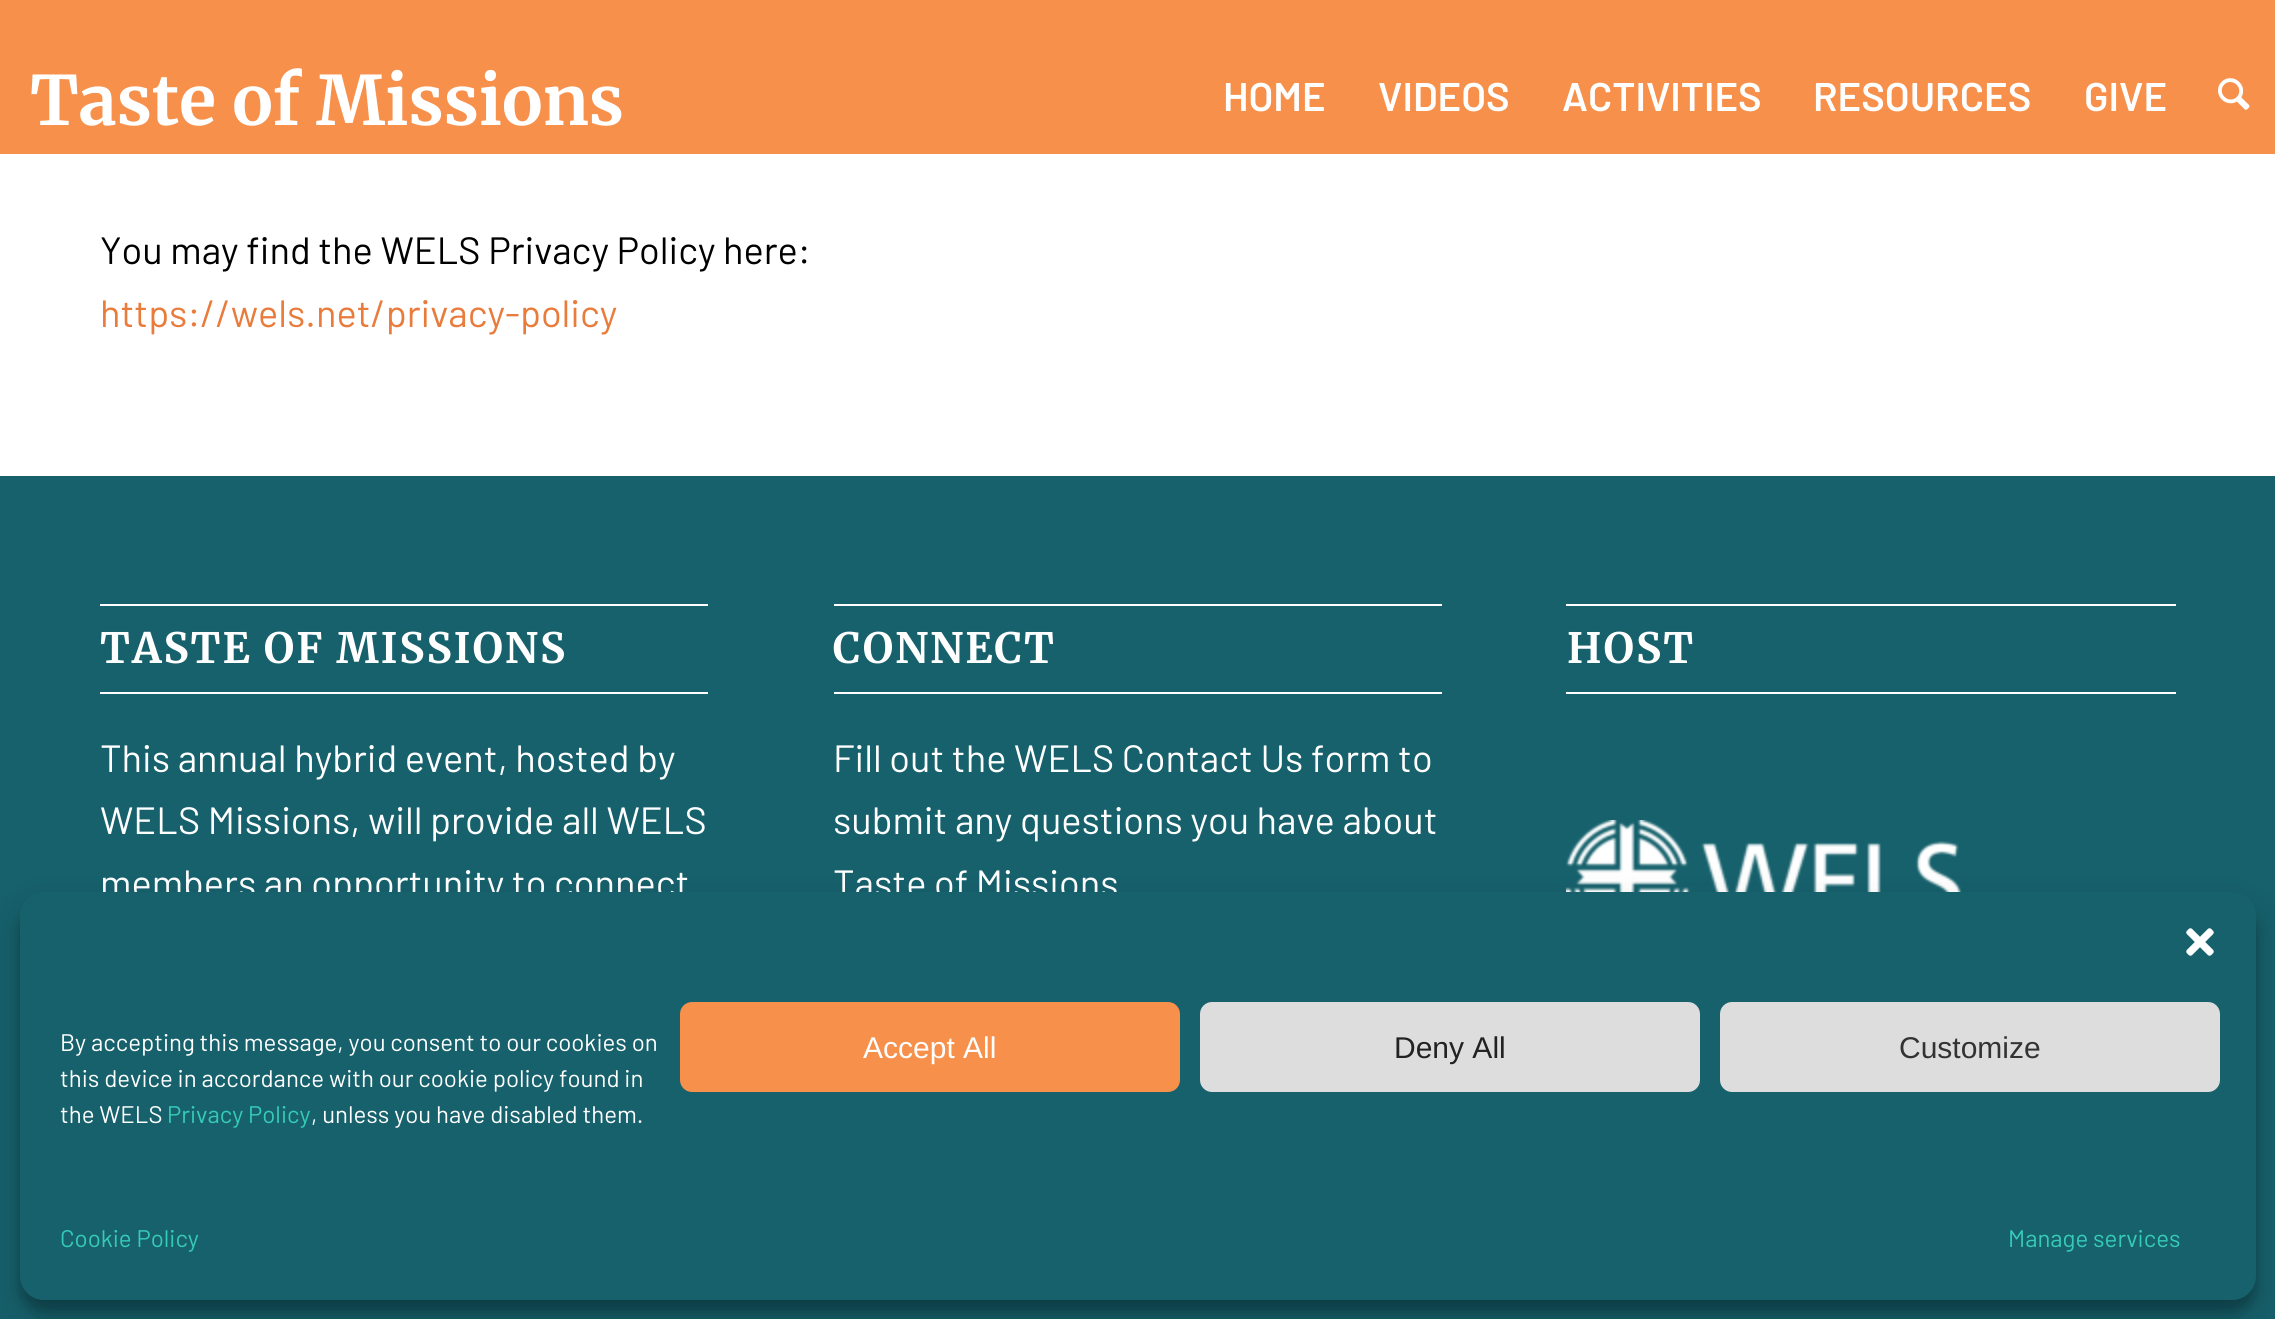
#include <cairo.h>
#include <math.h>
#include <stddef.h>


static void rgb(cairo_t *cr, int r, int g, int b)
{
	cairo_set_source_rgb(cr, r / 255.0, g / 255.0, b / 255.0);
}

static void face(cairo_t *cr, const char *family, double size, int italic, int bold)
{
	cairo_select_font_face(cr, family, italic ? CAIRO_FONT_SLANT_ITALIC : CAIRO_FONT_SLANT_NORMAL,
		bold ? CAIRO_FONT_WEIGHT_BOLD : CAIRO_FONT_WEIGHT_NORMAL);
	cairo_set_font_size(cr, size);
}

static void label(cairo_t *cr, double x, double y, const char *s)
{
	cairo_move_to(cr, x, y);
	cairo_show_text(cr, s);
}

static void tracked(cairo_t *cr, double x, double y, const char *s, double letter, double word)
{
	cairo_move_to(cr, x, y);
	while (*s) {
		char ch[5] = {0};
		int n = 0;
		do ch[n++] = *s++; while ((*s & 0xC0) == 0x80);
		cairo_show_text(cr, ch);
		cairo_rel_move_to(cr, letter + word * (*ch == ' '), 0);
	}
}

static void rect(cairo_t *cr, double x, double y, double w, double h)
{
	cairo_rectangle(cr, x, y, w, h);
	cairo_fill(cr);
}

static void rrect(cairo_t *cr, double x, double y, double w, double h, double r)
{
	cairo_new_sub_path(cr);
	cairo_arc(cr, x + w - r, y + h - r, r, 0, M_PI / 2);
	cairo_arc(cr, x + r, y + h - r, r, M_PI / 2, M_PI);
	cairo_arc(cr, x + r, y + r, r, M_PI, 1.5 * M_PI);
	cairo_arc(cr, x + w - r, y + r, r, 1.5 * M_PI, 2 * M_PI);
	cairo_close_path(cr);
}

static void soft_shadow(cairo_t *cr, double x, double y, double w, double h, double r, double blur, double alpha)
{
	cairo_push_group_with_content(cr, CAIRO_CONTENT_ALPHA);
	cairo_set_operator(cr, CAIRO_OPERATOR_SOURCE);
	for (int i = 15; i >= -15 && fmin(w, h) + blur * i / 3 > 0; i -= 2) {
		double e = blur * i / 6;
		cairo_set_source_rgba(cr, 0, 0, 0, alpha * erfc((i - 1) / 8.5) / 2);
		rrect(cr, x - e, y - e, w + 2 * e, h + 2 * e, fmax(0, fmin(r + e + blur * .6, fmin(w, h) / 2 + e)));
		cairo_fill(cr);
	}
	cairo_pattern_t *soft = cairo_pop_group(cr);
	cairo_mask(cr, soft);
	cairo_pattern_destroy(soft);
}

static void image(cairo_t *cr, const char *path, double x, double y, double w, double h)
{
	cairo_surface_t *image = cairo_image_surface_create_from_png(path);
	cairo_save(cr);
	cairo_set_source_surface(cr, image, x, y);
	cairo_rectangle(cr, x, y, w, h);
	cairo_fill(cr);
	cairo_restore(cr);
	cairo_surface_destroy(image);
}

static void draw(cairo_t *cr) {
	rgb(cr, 255, 255, 255);
	cairo_paint(cr);
	rgb(cr, 247, 144, 75);
	rect(cr, 0, 0, 2275, 154);
	face(cr, "Merriweather", 68, 0, 1);
	rgb(cr, 255, 255, 255);
	label(cr, 30, 125, "Taste of Missions");
	face(cr, "Barlow SemiBold", 40, 0, 0);
	label(cr, 1223, 111, "HOME");
	label(cr, 1378, 111, "VIDEOS");
	label(cr, 1562, 111, "ACTIVITIES");
	label(cr, 1813, 111, "RESOURCES");
	label(cr, 2084, 111, "GIVE");
	image(cr, "image0.png", 2218, 78, 32, 32);
	face(cr, "Barlow", 38, 0, 0);
	rgb(cr, 0, 0, 0);
	label(cr, 100, 264, "You may find the WELS Privacy Policy here:");
	rgb(cr, 233, 123, 59);
	label(cr, 100, 327, "https://wels.net/privacy-policy");
	rgb(cr, 22, 97, 108);
	rect(cr, 0, 476, 2275, 843);
	rgb(cr, 255, 255, 255);
	rect(cr, 100, 604, 608, 2);
	rect(cr, 100, 692, 608, 2);
	face(cr, "Merriweather", 41.75, 0, 1);
	tracked(cr, 100, 663, "TASTE OF MISSIONS", 2, 0);
	face(cr, "Barlow", 38, 0, 0);
	label(cr, 100, 772, "This annual hybrid event, hosted by");
	label(cr, 100, 834, "WELS Missions, will provide all WELS");
	label(cr, 100, 897, "members an opportunity to connect");
	rect(cr, 834, 604, 608, 2);
	rect(cr, 834, 692, 608, 2);
	face(cr, "Merriweather", 41.75, 0, 1);
	tracked(cr, 833, 663, "CONNECT", 2, 0);
	face(cr, "Barlow", 38, 0, 0);
	label(cr, 833, 772, "Fill out the WELS Contact Us form to");
	label(cr, 833, 834, "submit any questions you have about");
	label(cr, 833, 897, "Taste of Missions");
	rect(cr, 1566, 604, 610, 2);
	rect(cr, 1566, 692, 610, 2);
	face(cr, "Merriweather", 41.75, 0, 1);
	tracked(cr, 1567, 663, "HOST", 2, 0);
	image(cr, "image1.png", 1566, 820, 396, 72);
	rgb(cr, 0, 0, 0);
	soft_shadow(cr, 20, 904, 2236, 408, 24, 6, 0.23);
	soft_shadow(cr, 20, 912, 2236, 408, 24, 20, 0.19);
	rgb(cr, 22, 97, 108);
	rrect(cr, 20, 892, 2236, 408, 24);
	cairo_fill(cr);
	image(cr, "image2.png", 2186, 928, 28, 28);
	face(cr, "Barlow", 24, 0, 0);
	rgb(cr, 255, 255, 255);
	label(cr, 60, 1051, "By accepting this message, you consent to our cookies on");
	label(cr, 60, 1087, "this device in accordance with our cookie policy found in");
	label(cr, 60, 1123, "the WELS");
	rgb(cr, 54, 203, 184);
	label(cr, 167, 1123, "Privacy Policy");
	rgb(cr, 255, 255, 255);
	label(cr, 311, 1123, ", unless you have disabled them.");
	rgb(cr, 247, 144, 75);
	rrect(cr, 681, 1003, 498, 88, 11);
	cairo_fill_preserve(cr);
	cairo_stroke(cr);
	face(cr, "Liberation Sans", 30, 0, 0);
	rgb(cr, 255, 255, 255);
	label(cr, 863, 1058, "Accept All");
	rgb(cr, 221, 221, 221);
	rrect(cr, 1201, 1003, 498, 88, 11);
	cairo_fill_preserve(cr);
	cairo_stroke(cr);
	rgb(cr, 34, 34, 34);
	label(cr, 1394, 1058, "Deny All");
	rgb(cr, 221, 221, 221);
	rrect(cr, 1721, 1003, 498, 88, 11);
	cairo_fill_preserve(cr);
	cairo_stroke(cr);
	rgb(cr, 51, 51, 51);
	label(cr, 1899, 1058, "Customize");
	face(cr, "Barlow", 24, 0, 0);
	rgb(cr, 54, 203, 184);
	label(cr, 60, 1247, "Cookie Policy");
	label(cr, 2008, 1247, "Manage services");
}

int main(void) {
	cairo_surface_t *surface = cairo_image_surface_create(CAIRO_FORMAT_RGB24, 2275, 1319);
	cairo_t *cr = cairo_create(surface);
	cairo_font_options_t *options = cairo_font_options_create();
	cairo_font_options_set_hint_metrics(options, CAIRO_HINT_METRICS_OFF);
	cairo_font_options_set_hint_style(options, CAIRO_HINT_STYLE_NONE);
	cairo_set_font_options(cr, options);
	cairo_set_miter_limit(cr, 4);
	draw(cr);
	cairo_surface_write_to_png(surface, "render.png");
	cairo_font_options_destroy(options);
	cairo_destroy(cr);
	cairo_surface_destroy(surface);
	return 0;
}
